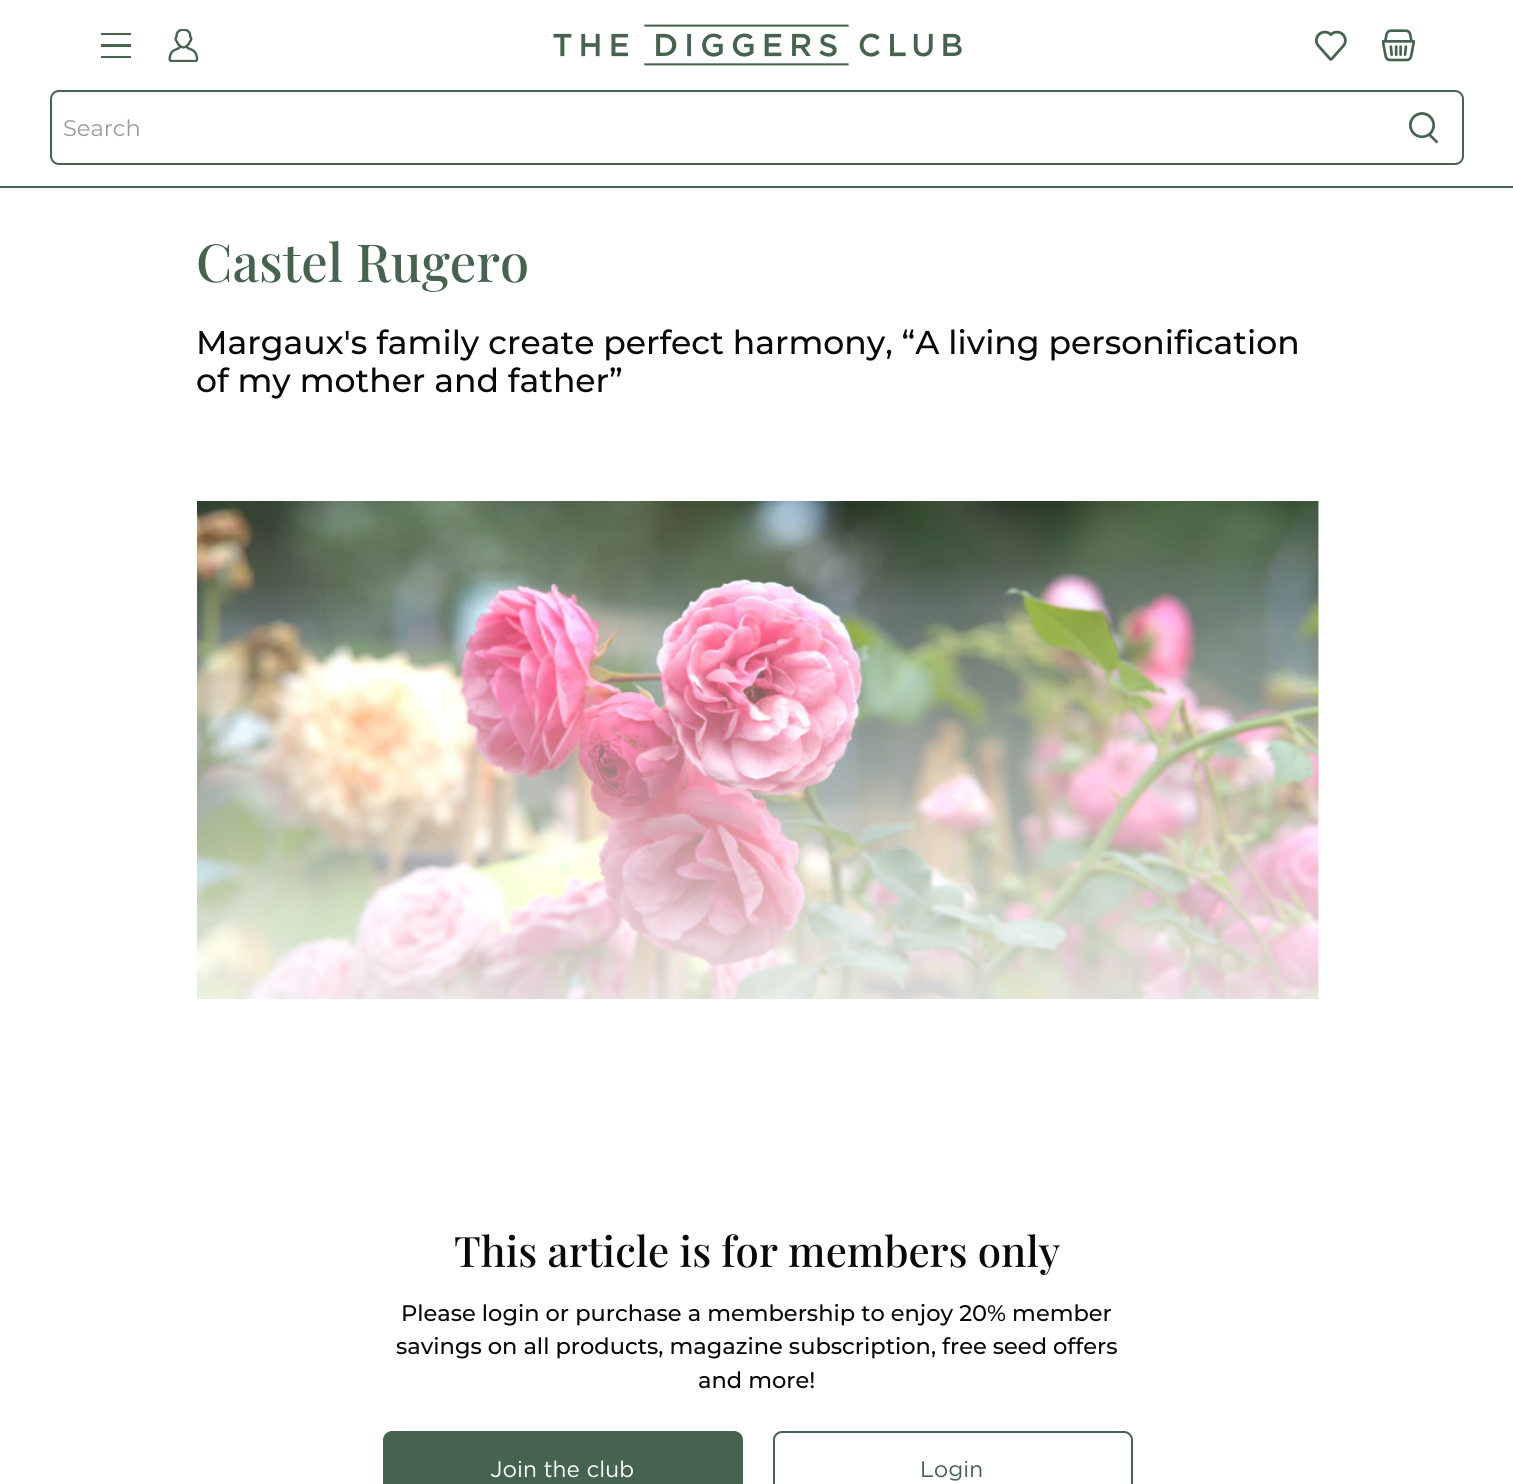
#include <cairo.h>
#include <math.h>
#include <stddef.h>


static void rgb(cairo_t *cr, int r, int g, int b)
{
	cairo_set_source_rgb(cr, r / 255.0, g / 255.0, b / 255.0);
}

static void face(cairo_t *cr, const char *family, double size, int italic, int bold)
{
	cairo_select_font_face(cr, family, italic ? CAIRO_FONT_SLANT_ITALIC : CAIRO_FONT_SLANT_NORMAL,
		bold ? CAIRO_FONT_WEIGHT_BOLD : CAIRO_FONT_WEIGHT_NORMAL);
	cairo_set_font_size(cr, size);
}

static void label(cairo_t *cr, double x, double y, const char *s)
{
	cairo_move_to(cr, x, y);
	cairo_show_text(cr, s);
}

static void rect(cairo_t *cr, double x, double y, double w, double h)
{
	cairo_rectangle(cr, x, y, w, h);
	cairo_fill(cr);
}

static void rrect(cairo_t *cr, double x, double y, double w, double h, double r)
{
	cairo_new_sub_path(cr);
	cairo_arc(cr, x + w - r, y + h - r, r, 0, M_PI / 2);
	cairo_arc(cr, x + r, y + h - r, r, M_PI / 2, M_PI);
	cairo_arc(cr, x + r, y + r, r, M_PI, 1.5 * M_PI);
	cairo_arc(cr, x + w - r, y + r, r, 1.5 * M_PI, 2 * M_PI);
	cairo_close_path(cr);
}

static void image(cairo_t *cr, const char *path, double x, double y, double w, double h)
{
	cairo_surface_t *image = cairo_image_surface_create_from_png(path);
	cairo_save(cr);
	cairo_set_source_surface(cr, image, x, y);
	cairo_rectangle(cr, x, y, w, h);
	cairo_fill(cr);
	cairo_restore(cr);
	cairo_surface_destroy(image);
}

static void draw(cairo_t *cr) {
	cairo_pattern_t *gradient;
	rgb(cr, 255, 255, 255);
	cairo_paint(cr);
	rgb(cr, 69, 99, 79);
	rect(cr, 101, 33, 30, 2);
	rect(cr, 101, 44, 30, 3);
	rect(cr, 101, 56, 30, 2);
	image(cr, "image0.png", 168, 29, 31, 33);
	image(cr, "image1.png", 553, 24, 409, 42);
	image(cr, "image2.png", 1315, 30, 32, 31);
	image(cr, "image3.png", 1382, 29, 33, 33);
	rrect(cr, 51, 91, 1412, 73, 8);
	cairo_stroke(cr);
	face(cr, "Montserrat", 22.5, 0, 0);
	rgb(cr, 155, 155, 155);
	label(cr, 63, 136, "Search");
	image(cr, "image4.png", 1409, 112, 30, 32);
	rgb(cr, 69, 99, 79);
	rect(cr, 0, 186, 1513, 2);
	face(cr, "Playfair Display Medium", 52.5, 0, 0);
	label(cr, 196, 282, "Castel Rugero");
	face(cr, "Montserrat Medium", 33, 0, 0);
	rgb(cr, 9, 9, 10);
	label(cr, 196, 354, "Margaux's family create perfect harmony, “A living personification");
	label(cr, 196, 392, "of my mother and father”");
	image(cr, "image5.png", 197, 501, 1122, 499);
	gradient = cairo_pattern_create_linear(757, 435, 758, 1194);
	cairo_pattern_add_color_stop_rgba(gradient, 0, 1, 1, 1, 0);
	cairo_pattern_add_color_stop_rgba(gradient, 0.9, 1, 1, 1, 1);
	cairo_set_source(cr, gradient);
	cairo_pattern_destroy(gradient);
	rect(cr, 197, 501, 1122, 499);
	face(cr, "Playfair Display Medium", 42, 0, 0);
	rgb(cr, 9, 9, 10);
	label(cr, 454, 1267, "This article is for members only");
	face(cr, "Montserrat Medium", 22.5, 0, 0);
	label(cr, 401, 1321, "Please login or purchase a membership to enjoy 20% member");
	label(cr, 396, 1354, "savings on all products, magazine subscription, free seed offers");
	label(cr, 698, 1388, "and more!");
	rgb(cr, 69, 99, 79);
	rrect(cr, 383, 1431, 360, 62, 9);
	cairo_fill(cr);
	face(cr, "Gotham", 22.5, 0, 0);
	rgb(cr, 255, 255, 255);
	label(cr, 490, 1477, "Join the club");
	rrect(cr, 774, 1432, 358, 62, 8);
	rgb(cr, 69, 99, 79);
	cairo_stroke(cr);
	label(cr, 920, 1477, "Login");
}

int main(void) {
	cairo_surface_t *surface = cairo_image_surface_create(CAIRO_FORMAT_RGB24, 1513, 1484);
	cairo_t *cr = cairo_create(surface);
	cairo_font_options_t *options = cairo_font_options_create();
	cairo_font_options_set_hint_metrics(options, CAIRO_HINT_METRICS_OFF);
	cairo_font_options_set_hint_style(options, CAIRO_HINT_STYLE_NONE);
	cairo_set_font_options(cr, options);
	cairo_set_miter_limit(cr, 4);
	draw(cr);
	cairo_surface_write_to_png(surface, "render.png");
	cairo_font_options_destroy(options);
	cairo_destroy(cr);
	cairo_surface_destroy(surface);
	return 0;
}
